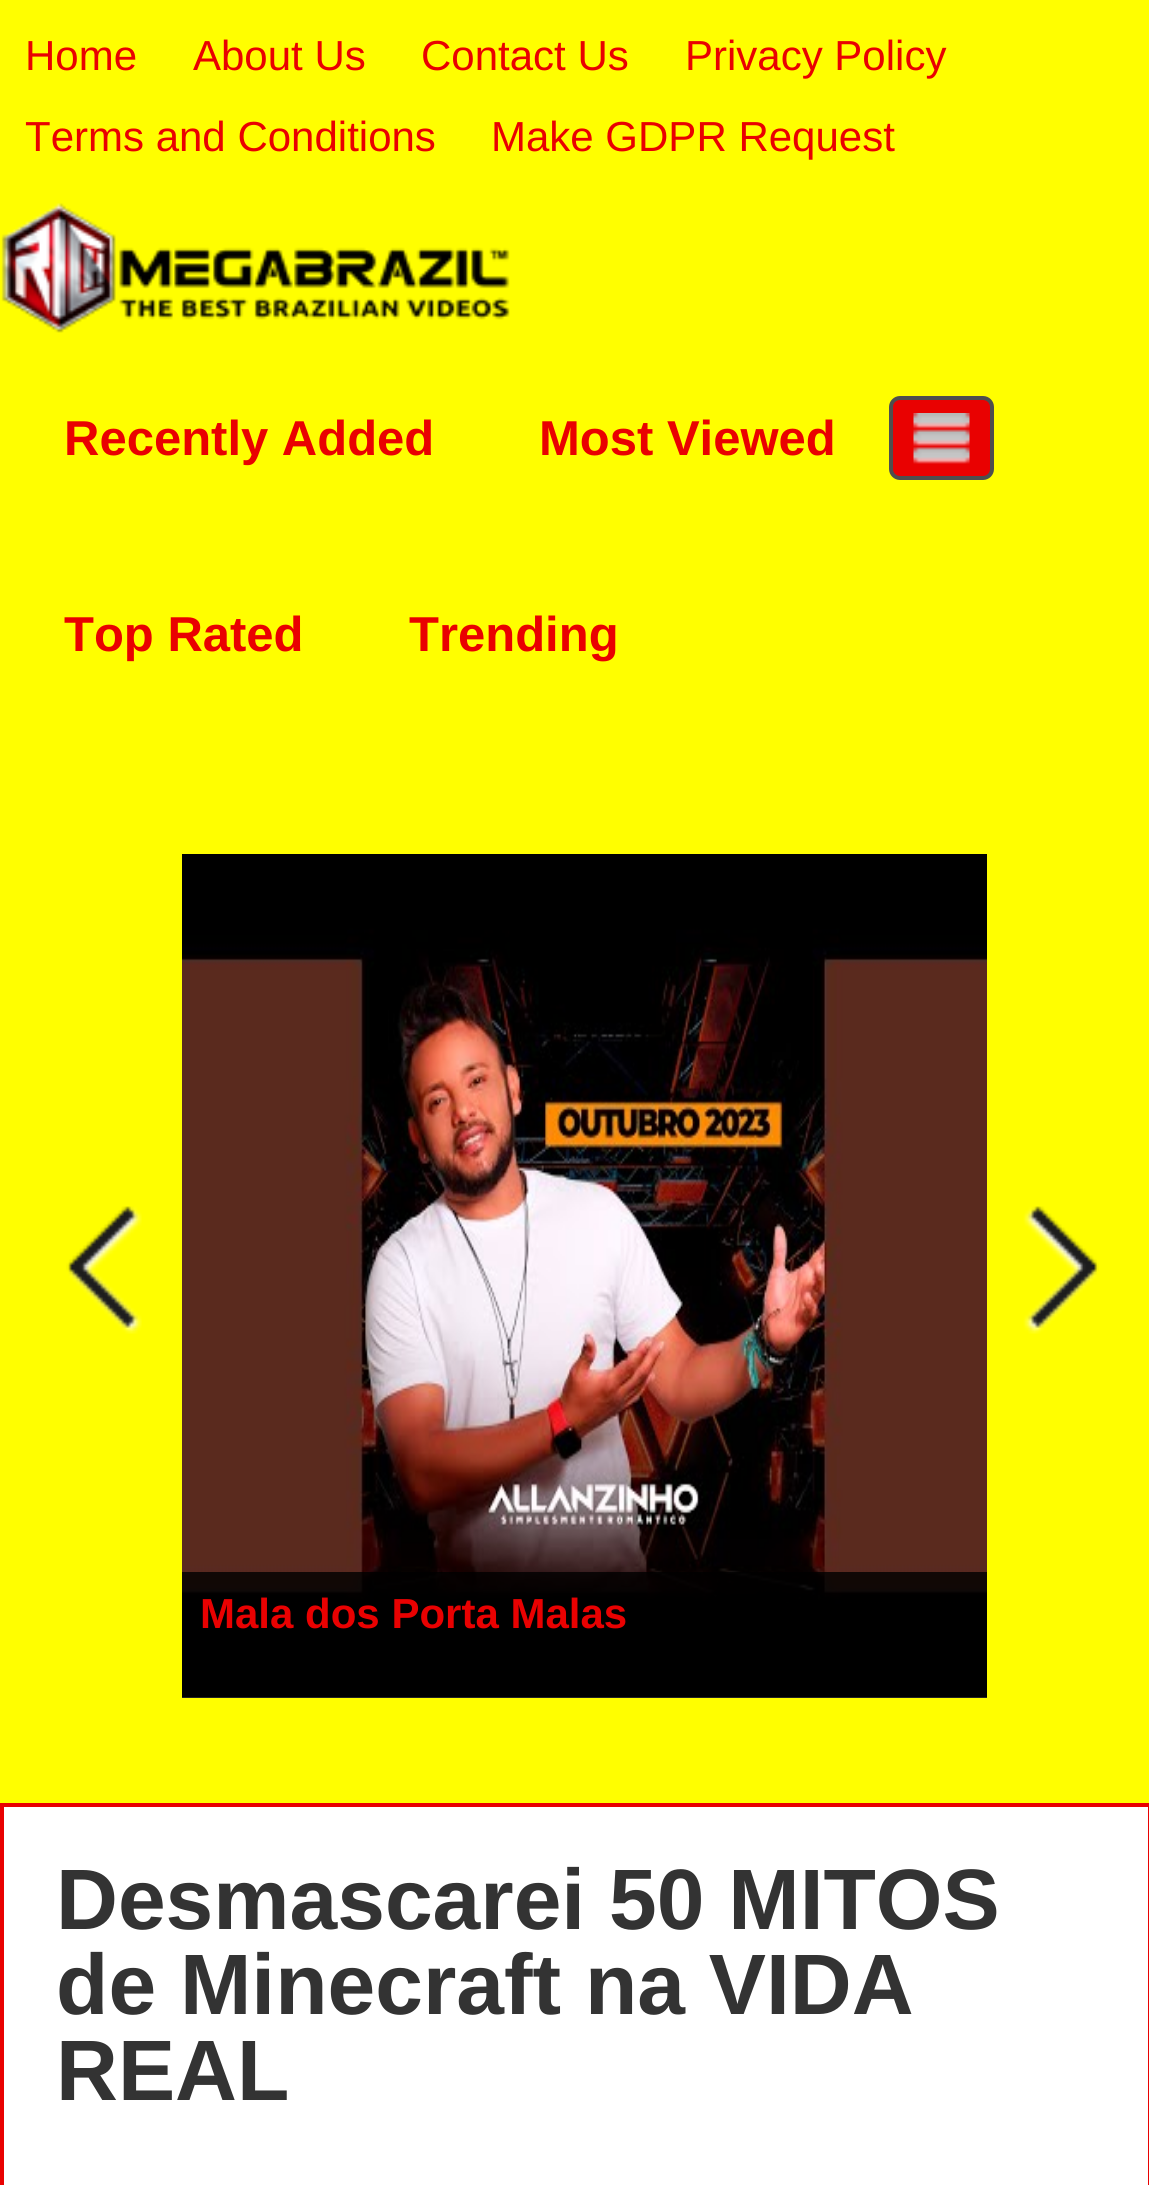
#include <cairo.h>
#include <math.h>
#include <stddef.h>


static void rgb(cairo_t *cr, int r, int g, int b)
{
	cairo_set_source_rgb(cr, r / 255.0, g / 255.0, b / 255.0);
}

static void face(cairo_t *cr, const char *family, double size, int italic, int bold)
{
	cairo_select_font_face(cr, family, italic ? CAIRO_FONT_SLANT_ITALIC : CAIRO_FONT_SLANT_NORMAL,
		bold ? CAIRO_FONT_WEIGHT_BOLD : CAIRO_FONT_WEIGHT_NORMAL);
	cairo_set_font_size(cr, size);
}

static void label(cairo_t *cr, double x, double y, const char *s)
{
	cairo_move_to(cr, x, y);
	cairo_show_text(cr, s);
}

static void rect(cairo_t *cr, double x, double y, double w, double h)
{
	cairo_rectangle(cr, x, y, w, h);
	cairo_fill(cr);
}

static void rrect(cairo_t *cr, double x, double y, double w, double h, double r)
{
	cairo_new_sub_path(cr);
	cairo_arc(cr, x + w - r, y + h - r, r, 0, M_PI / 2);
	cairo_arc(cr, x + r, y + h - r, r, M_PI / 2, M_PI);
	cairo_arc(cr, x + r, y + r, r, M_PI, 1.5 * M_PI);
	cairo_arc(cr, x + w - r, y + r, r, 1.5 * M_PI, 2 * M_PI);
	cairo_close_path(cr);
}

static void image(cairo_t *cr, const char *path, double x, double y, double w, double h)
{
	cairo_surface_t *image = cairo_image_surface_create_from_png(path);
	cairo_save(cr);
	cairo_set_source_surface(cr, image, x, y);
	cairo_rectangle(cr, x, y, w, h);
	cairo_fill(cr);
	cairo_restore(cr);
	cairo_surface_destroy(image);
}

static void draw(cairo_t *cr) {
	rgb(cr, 255, 254, 0);
	cairo_paint(cr);
	face(cr, "Liberation Sans", 42, 0, 0);
	rgb(cr, 233, 1, 1);
	label(cr, 25, 70, "Home");
	label(cr, 193, 70, "About Us");
	label(cr, 421, 70, "Contact Us");
	label(cr, 685, 70, "Privacy Policy");
	label(cr, 25, 151, "Terms and Conditions");
	label(cr, 491, 151, "Make GDPR Request");
	image(cr, "image0.png", 1, 203, 509, 130);
	face(cr, "Liberation Sans", 49, 0, 1);
	label(cr, 64, 455, "Recently Added");
	label(cr, 539, 455, "Most Viewed");
	label(cr, 64, 651, "Top Rated");
	label(cr, 409, 651, "Trending");
	rrect(cr, 891, 398, 101, 80, 9);
	cairo_fill_preserve(cr);
	rgb(cr, 78, 78, 78);
	cairo_set_line_width(cr, 4);
	cairo_stroke(cr);
	image(cr, "image1.png", 913, 413, 57, 51);
	image(cr, "image2.png", 66, 1206, 76, 128);
	image(cr, "image3.png", 1023, 1206, 76, 128);
	rgb(cr, 255, 255, 255);
	rect(cr, 182, 1697, 805, 1);
	image(cr, "image4.png", 182, 854, 805, 844);
	cairo_set_source_rgba(cr, 0, 0, 0, 0.81);
	rect(cr, 182, 1572, 805, 126);
	face(cr, "Liberation Sans", 42, 0, 1);
	rgb(cr, 233, 1, 1);
	label(cr, 200, 1628, "Mala dos Porta Malas");
	rgb(cr, 255, 255, 255);
	cairo_rectangle(cr, 2, 1805, 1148, 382);
	cairo_fill_preserve(cr);
	rgb(cr, 233, 1, 1);
	cairo_stroke(cr);
	face(cr, "Liberation Sans", 85.75, 0, 1);
	rgb(cr, 51, 51, 51);
	label(cr, 56, 1929, "Desmascarei 50 MITOS");
	label(cr, 56, 2014, "de Minecraft na VIDA");
	label(cr, 56, 2100, "REAL");
}

int main(void) {
	cairo_surface_t *surface = cairo_image_surface_create(CAIRO_FORMAT_RGB24, 1149, 2185);
	cairo_t *cr = cairo_create(surface);
	cairo_font_options_t *options = cairo_font_options_create();
	cairo_font_options_set_hint_metrics(options, CAIRO_HINT_METRICS_OFF);
	cairo_font_options_set_hint_style(options, CAIRO_HINT_STYLE_NONE);
	cairo_set_font_options(cr, options);
	cairo_set_miter_limit(cr, 4);
	draw(cr);
	cairo_surface_write_to_png(surface, "render.png");
	cairo_font_options_destroy(options);
	cairo_destroy(cr);
	cairo_surface_destroy(surface);
	return 0;
}
